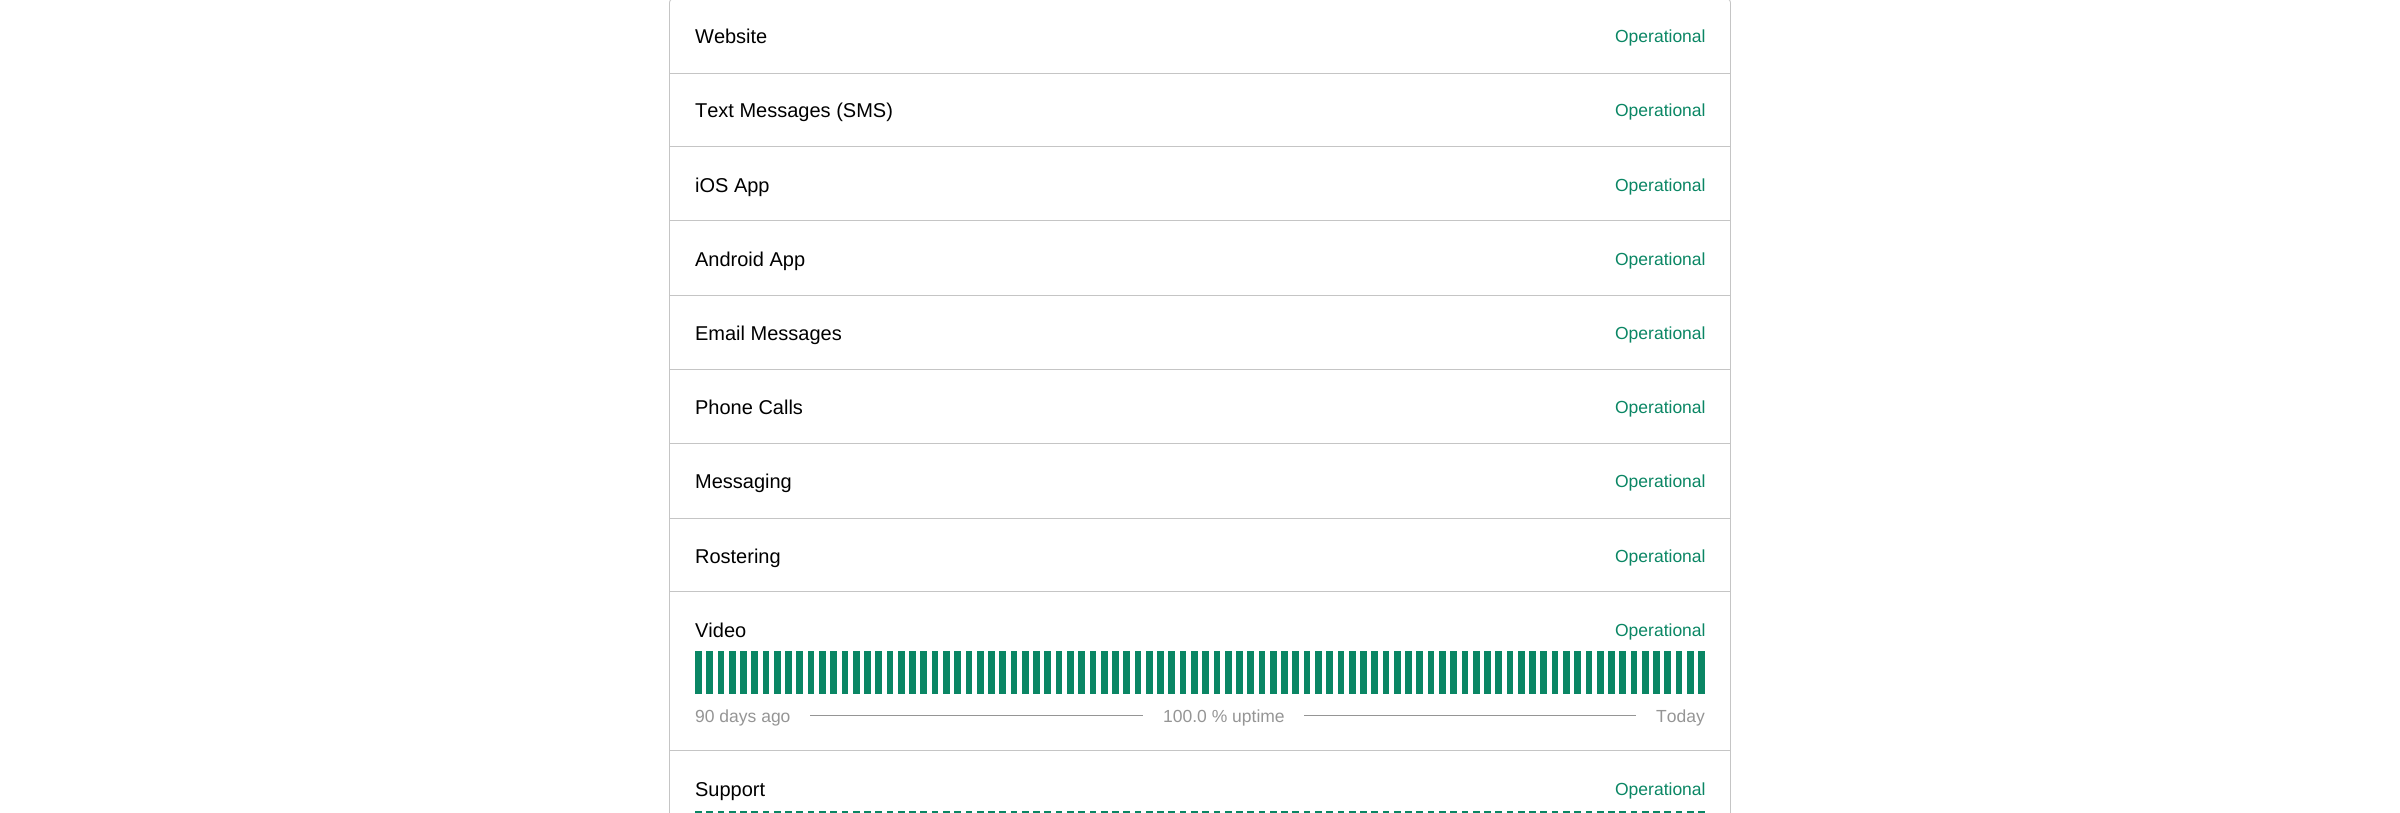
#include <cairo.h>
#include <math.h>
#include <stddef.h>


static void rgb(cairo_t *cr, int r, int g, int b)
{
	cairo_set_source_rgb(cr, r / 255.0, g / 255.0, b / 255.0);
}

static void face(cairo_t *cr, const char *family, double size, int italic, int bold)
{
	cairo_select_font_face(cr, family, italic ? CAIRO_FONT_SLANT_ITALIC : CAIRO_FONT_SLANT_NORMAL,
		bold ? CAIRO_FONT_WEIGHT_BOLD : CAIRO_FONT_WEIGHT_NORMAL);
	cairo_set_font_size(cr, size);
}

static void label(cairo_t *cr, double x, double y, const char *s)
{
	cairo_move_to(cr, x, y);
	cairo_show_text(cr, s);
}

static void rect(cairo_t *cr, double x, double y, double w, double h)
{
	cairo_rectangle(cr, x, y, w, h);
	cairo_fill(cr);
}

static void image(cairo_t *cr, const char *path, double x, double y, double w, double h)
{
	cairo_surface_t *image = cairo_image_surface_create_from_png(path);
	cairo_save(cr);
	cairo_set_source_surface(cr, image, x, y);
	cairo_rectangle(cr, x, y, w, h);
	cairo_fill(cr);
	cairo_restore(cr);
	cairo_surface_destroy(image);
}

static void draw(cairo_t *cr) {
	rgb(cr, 255, 255, 255);
	cairo_paint(cr);
	cairo_new_path(cr);
	cairo_move_to(cr, 674, -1.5);
	cairo_line_to(cr, 1726, -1.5);
	cairo_curve_to(cr, 1728.5, -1.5, 1730.5, 0.5, 1730.5, 3);
	cairo_line_to(cr, 1730.5, 73.5);
	cairo_line_to(cr, 669.5, 73.5);
	cairo_line_to(cr, 669.5, 3);
	cairo_curve_to(cr, 669.5, 0.5, 671.5, -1.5, 674, -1.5);
	cairo_close_path(cr);
	rgb(cr, 197, 197, 197);
	cairo_set_line_width(cr, 1);
	cairo_stroke(cr);
	face(cr, "Liberation Sans", 20, 0, 0);
	rgb(cr, 0, 0, 0);
	label(cr, 695, 43, "Website");
	face(cr, "Liberation Sans", 17.5, 0, 0);
	rgb(cr, 10, 134, 100);
	label(cr, 1615, 42, "Operational");
	rgb(cr, 197, 197, 197);
	rect(cr, 1730, 74, 1, 677);
	rect(cr, 669, 146, 1062, 1);
	rect(cr, 669, 74, 1, 74);
	face(cr, "Liberation Sans", 20, 0, 0);
	rgb(cr, 0, 0, 0);
	label(cr, 695, 117, "Text Messages (SMS)");
	face(cr, "Liberation Sans", 17.5, 0, 0);
	rgb(cr, 10, 134, 100);
	label(cr, 1615, 116, "Operational");
	rgb(cr, 197, 197, 197);
	rect(cr, 669, 220, 1062, 1);
	rect(cr, 669, 148, 1, 73);
	face(cr, "Liberation Sans", 20, 0, 0);
	rgb(cr, 0, 0, 0);
	label(cr, 695, 192, "iOS App");
	face(cr, "Liberation Sans", 17.5, 0, 0);
	rgb(cr, 10, 134, 100);
	label(cr, 1615, 191, "Operational");
	rgb(cr, 197, 197, 197);
	rect(cr, 669, 295, 1062, 1);
	rect(cr, 669, 221, 1, 75);
	face(cr, "Liberation Sans", 20, 0, 0);
	rgb(cr, 0, 0, 0);
	label(cr, 695, 266, "Android App");
	face(cr, "Liberation Sans", 17.5, 0, 0);
	rgb(cr, 10, 134, 100);
	label(cr, 1615, 265, "Operational");
	rgb(cr, 197, 197, 197);
	rect(cr, 669, 369, 1062, 1);
	rect(cr, 669, 296, 1, 74);
	face(cr, "Liberation Sans", 20, 0, 0);
	rgb(cr, 0, 0, 0);
	label(cr, 695, 340, "Email Messages");
	face(cr, "Liberation Sans", 17.5, 0, 0);
	rgb(cr, 10, 134, 100);
	label(cr, 1615, 339, "Operational");
	rgb(cr, 197, 197, 197);
	rect(cr, 669, 443, 1062, 1);
	rect(cr, 669, 370, 1, 74);
	face(cr, "Liberation Sans", 20, 0, 0);
	rgb(cr, 0, 0, 0);
	label(cr, 695, 414, "Phone Calls");
	face(cr, "Liberation Sans", 17.5, 0, 0);
	rgb(cr, 10, 134, 100);
	label(cr, 1615, 413, "Operational");
	rgb(cr, 197, 197, 197);
	rect(cr, 669, 518, 1062, 1);
	rect(cr, 669, 444, 1, 75);
	face(cr, "Liberation Sans", 20, 0, 0);
	rgb(cr, 0, 0, 0);
	label(cr, 695, 488, "Messaging");
	face(cr, "Liberation Sans", 17.5, 0, 0);
	rgb(cr, 10, 134, 100);
	label(cr, 1615, 487, "Operational");
	rgb(cr, 197, 197, 197);
	rect(cr, 669, 591, 1062, 1);
	rect(cr, 669, 519, 1, 74);
	face(cr, "Liberation Sans", 20, 0, 0);
	rgb(cr, 0, 0, 0);
	label(cr, 695, 563, "Rostering");
	face(cr, "Liberation Sans", 17.5, 0, 0);
	rgb(cr, 10, 134, 100);
	label(cr, 1615, 562, "Operational");
	rgb(cr, 197, 197, 197);
	rect(cr, 669, 750, 1062, 1);
	rect(cr, 669, 593, 1, 158);
	face(cr, "Liberation Sans", 20, 0, 0);
	rgb(cr, 0, 0, 0);
	label(cr, 695, 637, "Video");
	face(cr, "Liberation Sans", 17.5, 0, 0);
	rgb(cr, 10, 134, 100);
	label(cr, 1615, 636, "Operational");
	image(cr, "image0.png", 695, 651, 1010, 43);
	rgb(cr, 149, 149, 149);
	label(cr, 695, 722, "90 days ago");
	rect(cr, 810, 715, 333, 1);
	label(cr, 1163, 722, "100.0 % uptime");
	rect(cr, 1304, 715, 332, 1);
	label(cr, 1656, 722, "Today");
	rgb(cr, 197, 197, 197);
	cairo_set_fill_rule(cr, CAIRO_FILL_RULE_EVEN_ODD);
	cairo_new_path(cr);
	cairo_move_to(cr, 669, 751);
	cairo_line_to(cr, 1731, 751);
	cairo_line_to(cr, 1731, 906);
	cairo_curve_to(cr, 1731, 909, 1729, 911, 1726, 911);
	cairo_line_to(cr, 674, 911);
	cairo_curve_to(cr, 671, 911, 669, 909, 669, 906);
	cairo_close_path(cr);
	cairo_move_to(cr, 670, 751);
	cairo_line_to(cr, 1730, 751);
	cairo_line_to(cr, 1730, 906);
	cairo_curve_to(cr, 1730, 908, 1728, 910, 1726, 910);
	cairo_line_to(cr, 674, 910);
	cairo_curve_to(cr, 672, 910, 670, 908, 670, 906);
	cairo_close_path(cr);
	cairo_fill(cr);
	face(cr, "Liberation Sans", 20, 0, 0);
	rgb(cr, 0, 0, 0);
	label(cr, 695, 796, "Support");
	face(cr, "Liberation Sans", 17.5, 0, 0);
	rgb(cr, 10, 134, 100);
	label(cr, 1615, 795, "Operational");
	image(cr, "image1.png", 695, 811, 1010, 2);
}

int main(void) {
	cairo_surface_t *surface = cairo_image_surface_create(CAIRO_FORMAT_RGB24, 2400, 813);
	cairo_t *cr = cairo_create(surface);
	cairo_font_options_t *options = cairo_font_options_create();
	cairo_font_options_set_hint_metrics(options, CAIRO_HINT_METRICS_OFF);
	cairo_font_options_set_hint_style(options, CAIRO_HINT_STYLE_NONE);
	cairo_set_font_options(cr, options);
	cairo_set_miter_limit(cr, 4);
	draw(cr);
	cairo_surface_write_to_png(surface, "render.png");
	cairo_font_options_destroy(options);
	cairo_destroy(cr);
	cairo_surface_destroy(surface);
	return 0;
}
